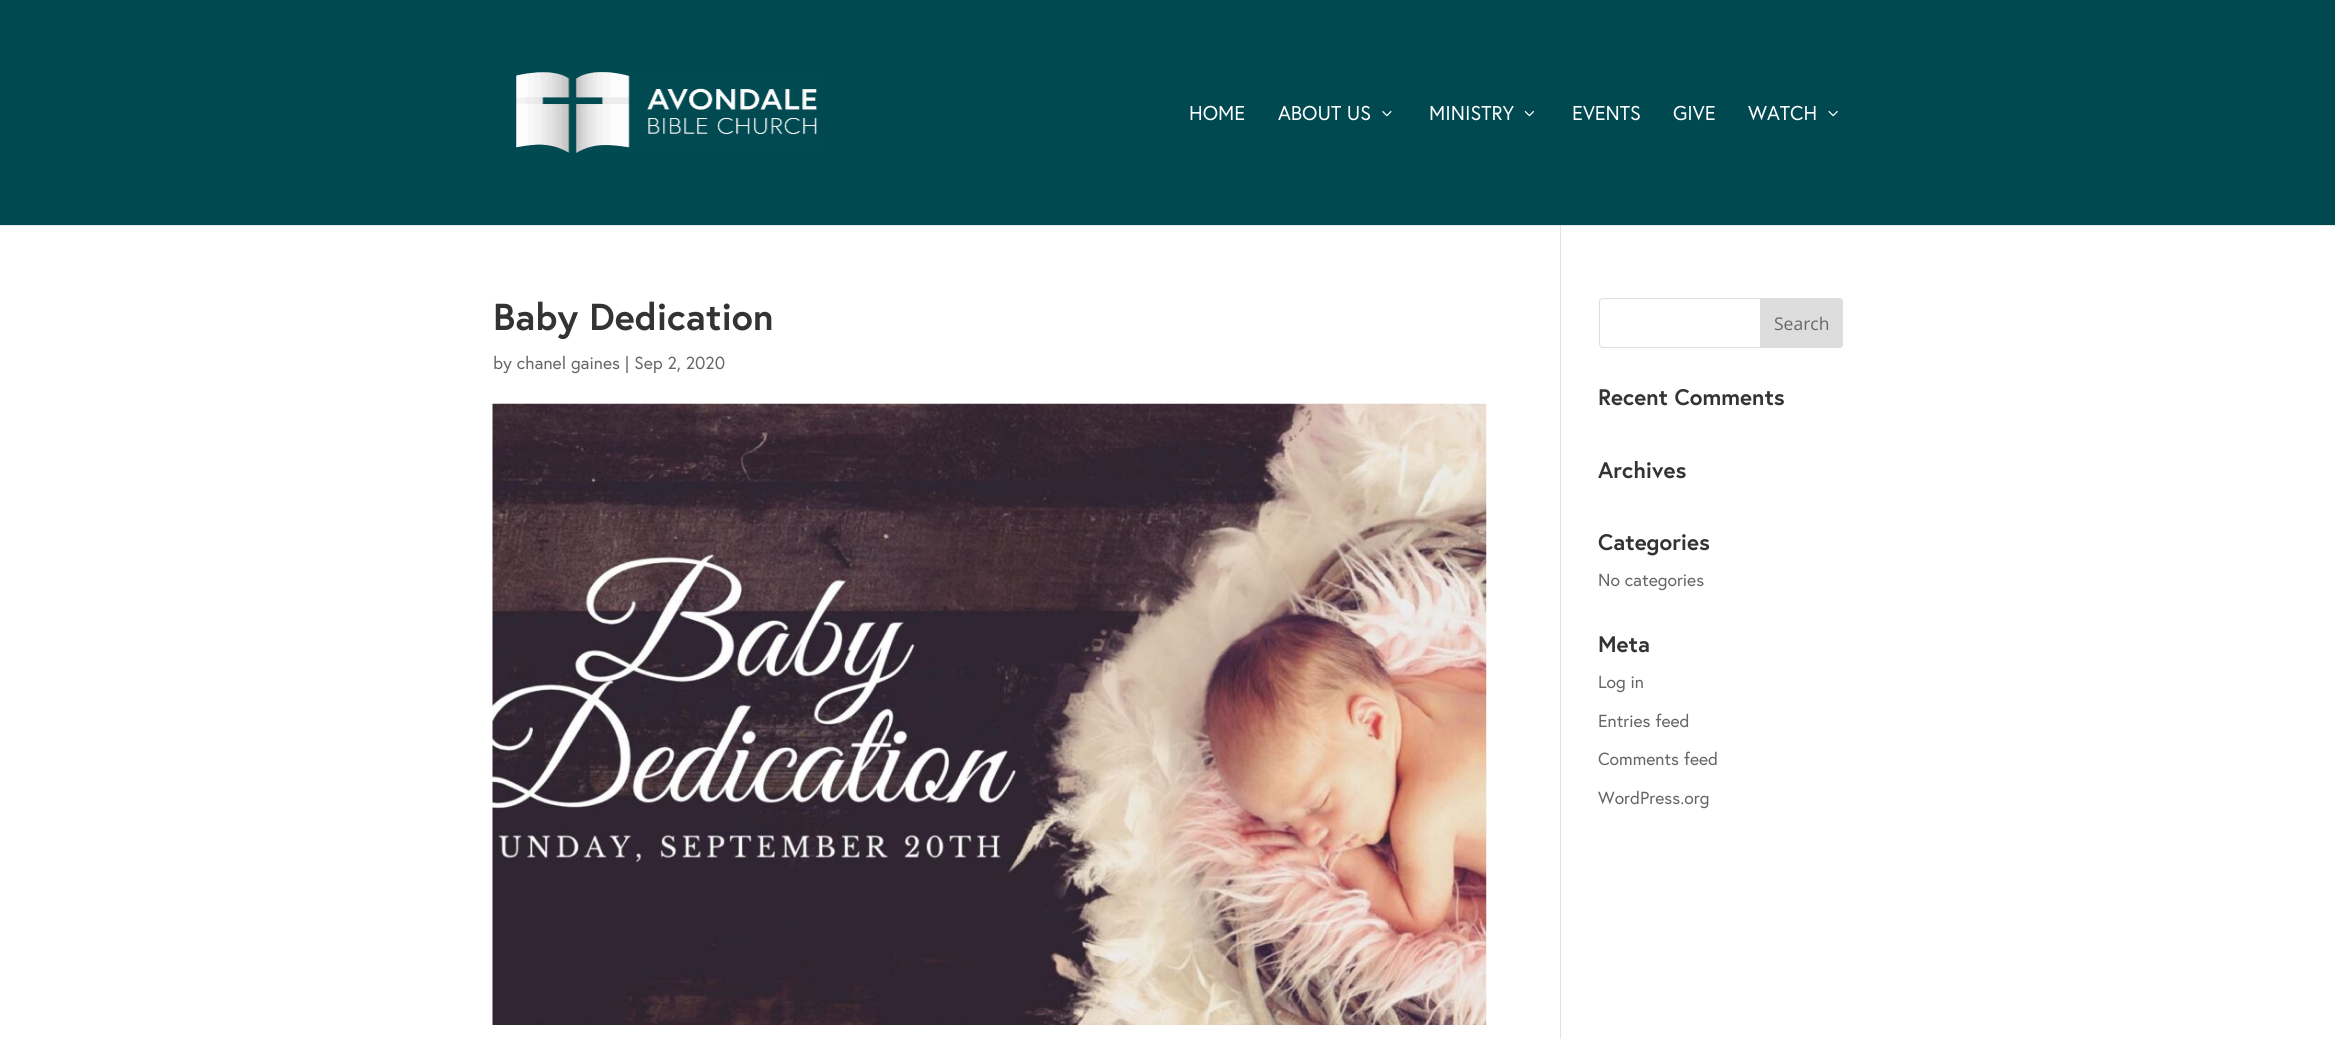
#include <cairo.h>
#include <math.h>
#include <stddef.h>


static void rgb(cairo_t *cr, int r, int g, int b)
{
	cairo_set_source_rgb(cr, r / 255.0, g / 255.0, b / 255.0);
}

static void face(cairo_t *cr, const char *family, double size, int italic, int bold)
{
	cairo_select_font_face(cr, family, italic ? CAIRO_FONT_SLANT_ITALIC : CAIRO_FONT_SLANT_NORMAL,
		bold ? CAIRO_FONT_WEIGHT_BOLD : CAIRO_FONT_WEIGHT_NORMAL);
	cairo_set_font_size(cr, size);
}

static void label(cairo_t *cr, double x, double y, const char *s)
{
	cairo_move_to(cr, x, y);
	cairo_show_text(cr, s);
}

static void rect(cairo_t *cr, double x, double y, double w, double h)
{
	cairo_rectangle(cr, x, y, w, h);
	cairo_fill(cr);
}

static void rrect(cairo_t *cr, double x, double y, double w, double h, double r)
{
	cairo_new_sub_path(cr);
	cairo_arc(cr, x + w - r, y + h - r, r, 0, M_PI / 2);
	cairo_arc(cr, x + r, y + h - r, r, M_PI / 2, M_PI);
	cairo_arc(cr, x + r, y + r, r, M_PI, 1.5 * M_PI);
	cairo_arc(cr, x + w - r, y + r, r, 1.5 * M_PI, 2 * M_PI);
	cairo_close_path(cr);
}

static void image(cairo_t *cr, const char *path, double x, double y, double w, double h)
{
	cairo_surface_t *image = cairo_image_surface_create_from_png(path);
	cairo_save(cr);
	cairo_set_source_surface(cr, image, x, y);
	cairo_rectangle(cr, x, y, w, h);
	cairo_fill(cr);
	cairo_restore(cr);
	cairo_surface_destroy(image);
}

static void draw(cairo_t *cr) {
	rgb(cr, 255, 255, 255);
	cairo_paint(cr);
	rgb(cr, 230, 230, 230);
	rect(cr, 0, 225, 2335, 1);
	rgb(cr, 0, 73, 81);
	rect(cr, 0, 0, 2335, 225);
	image(cr, "image0.png", 516, 72, 302, 81);
	face(cr, "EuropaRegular", 20, 0, 0);
	rgb(cr, 255, 255, 255);
	label(cr, 1189, 120, "HOME");
	label(cr, 1278, 120, "ABOUT US");
	image(cr, "image1.png", 1382, 111, 10, 6);
	label(cr, 1429, 120, "MINISTRY");
	image(cr, "image2.png", 1524, 111, 10, 6);
	label(cr, 1572, 120, "EVENTS");
	label(cr, 1673, 120, "GIVE");
	label(cr, 1748, 120, "WATCH");
	image(cr, "image3.png", 1828, 111, 10, 6);
	rgb(cr, 226, 226, 226);
	rect(cr, 1560, 225, 1, 814);
	rgb(cr, 203, 203, 203);
	rect(cr, 1560, 225, 1, 1);
	face(cr, "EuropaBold", 37.5, 0, 1);
	rgb(cr, 51, 51, 51);
	label(cr, 493, 330, "Baby Dedication");
	face(cr, "EuropaRegular", 17.5, 0, 0);
	rgb(cr, 102, 102, 102);
	label(cr, 493, 369, "by chanel gaines | Sep 2, 2020");
	image(cr, "image4.png", 492, 403, 995, 622);
	rrect(cr, 1599.5, 298.5, 243, 49, 3.5);
	rgb(cr, 221, 221, 221);
	cairo_set_line_width(cr, 1);
	cairo_stroke(cr);
	cairo_new_path(cr);
	cairo_move_to(cr, 1760.5, 298.5);
	cairo_line_to(cr, 1839, 298.5);
	cairo_curve_to(cr, 1841, 298.5, 1842.5, 300, 1842.5, 302);
	cairo_line_to(cr, 1842.5, 344);
	cairo_curve_to(cr, 1842.5, 346, 1841, 347.5, 1839, 347.5);
	cairo_line_to(cr, 1760.5, 347.5);
	cairo_close_path(cr);
	cairo_fill_preserve(cr);
	cairo_stroke(cr);
	face(cr, "Open Sans", 17.5, 0, 0);
	rgb(cr, 102, 102, 102);
	label(cr, 1774, 330, "Search");
	face(cr, "EuropaBold", 22.5, 0, 1);
	rgb(cr, 51, 51, 51);
	label(cr, 1598, 405, "Recent Comments");
	label(cr, 1598, 478, "Archives");
	label(cr, 1598, 550, "Categories");
	face(cr, "EuropaRegular", 17.5, 0, 0);
	rgb(cr, 102, 102, 102);
	label(cr, 1598, 586, "No categories");
	face(cr, "EuropaBold", 22.5, 0, 1);
	rgb(cr, 51, 51, 51);
	label(cr, 1598, 652, "Meta");
	face(cr, "EuropaRegular", 17.5, 0, 0);
	rgb(cr, 102, 102, 102);
	label(cr, 1598, 688, "Log in");
	label(cr, 1598, 727, "Entries feed");
	label(cr, 1598, 765, "Comments feed");
	label(cr, 1598, 804, "WordPress.org");
}

int main(void) {
	cairo_surface_t *surface = cairo_image_surface_create(CAIRO_FORMAT_RGB24, 2335, 1039);
	cairo_t *cr = cairo_create(surface);
	cairo_font_options_t *options = cairo_font_options_create();
	cairo_font_options_set_hint_metrics(options, CAIRO_HINT_METRICS_OFF);
	cairo_font_options_set_hint_style(options, CAIRO_HINT_STYLE_NONE);
	cairo_set_font_options(cr, options);
	cairo_set_miter_limit(cr, 4);
	draw(cr);
	cairo_surface_write_to_png(surface, "render.png");
	cairo_font_options_destroy(options);
	cairo_destroy(cr);
	cairo_surface_destroy(surface);
	return 0;
}
